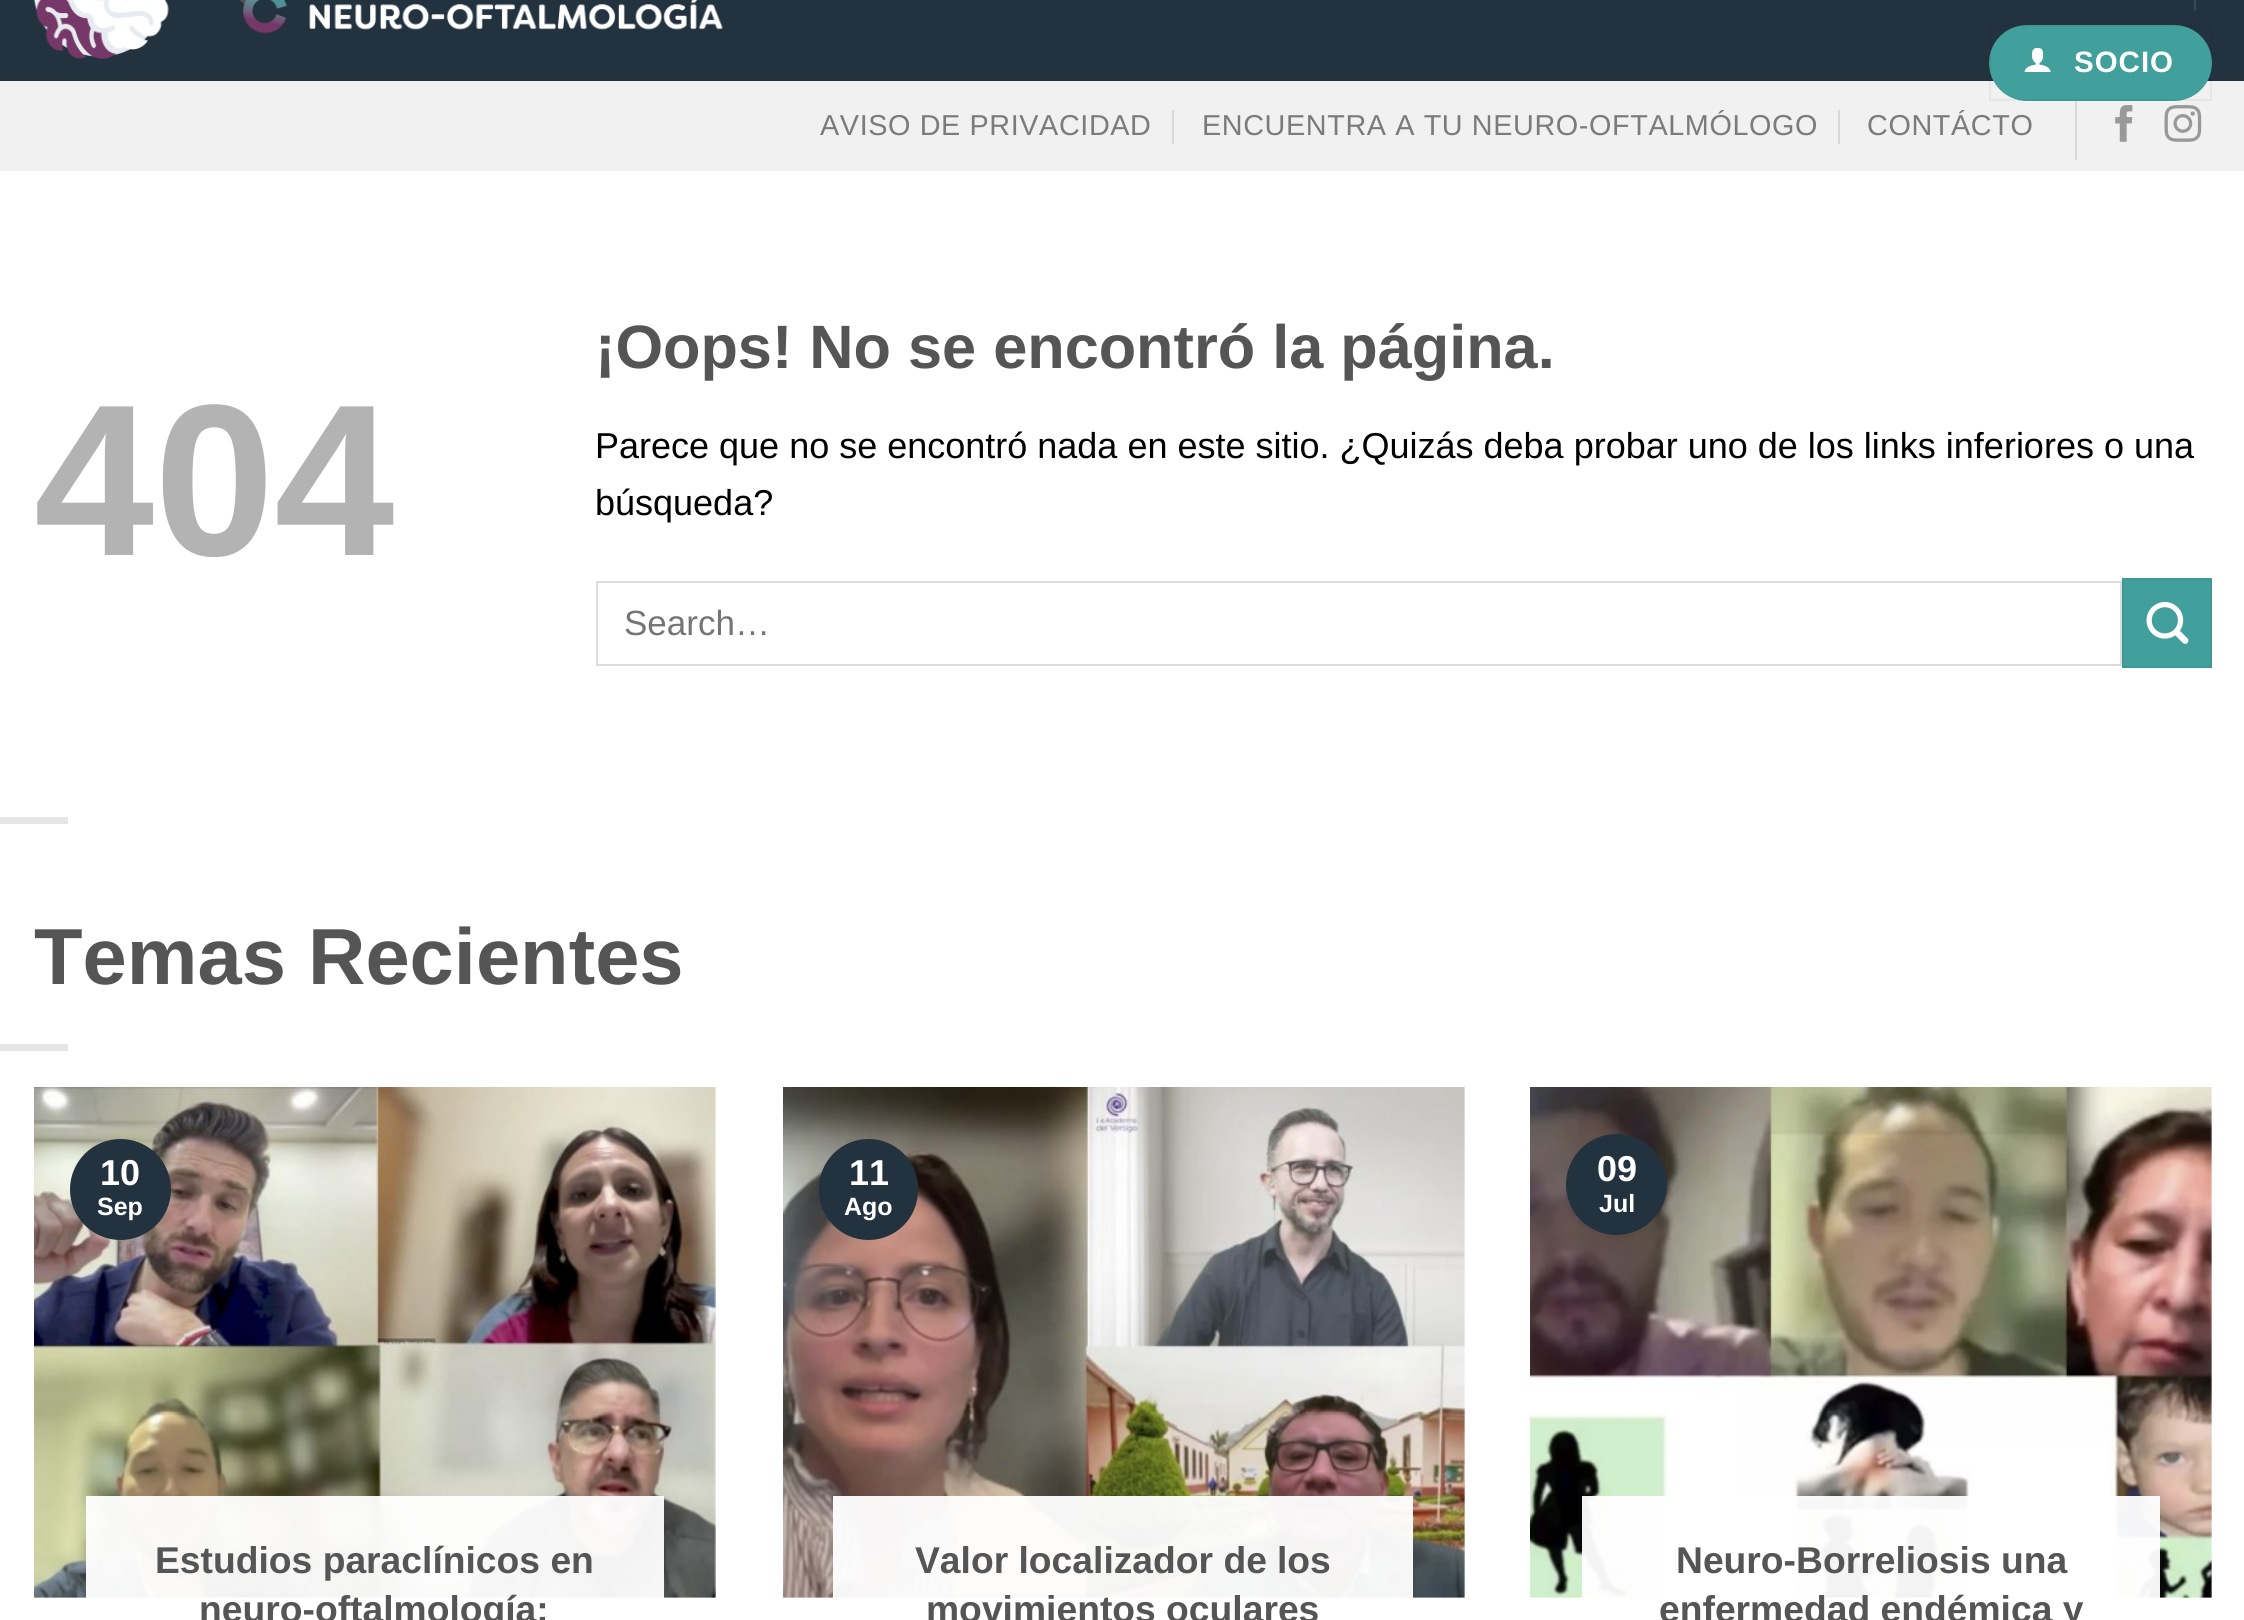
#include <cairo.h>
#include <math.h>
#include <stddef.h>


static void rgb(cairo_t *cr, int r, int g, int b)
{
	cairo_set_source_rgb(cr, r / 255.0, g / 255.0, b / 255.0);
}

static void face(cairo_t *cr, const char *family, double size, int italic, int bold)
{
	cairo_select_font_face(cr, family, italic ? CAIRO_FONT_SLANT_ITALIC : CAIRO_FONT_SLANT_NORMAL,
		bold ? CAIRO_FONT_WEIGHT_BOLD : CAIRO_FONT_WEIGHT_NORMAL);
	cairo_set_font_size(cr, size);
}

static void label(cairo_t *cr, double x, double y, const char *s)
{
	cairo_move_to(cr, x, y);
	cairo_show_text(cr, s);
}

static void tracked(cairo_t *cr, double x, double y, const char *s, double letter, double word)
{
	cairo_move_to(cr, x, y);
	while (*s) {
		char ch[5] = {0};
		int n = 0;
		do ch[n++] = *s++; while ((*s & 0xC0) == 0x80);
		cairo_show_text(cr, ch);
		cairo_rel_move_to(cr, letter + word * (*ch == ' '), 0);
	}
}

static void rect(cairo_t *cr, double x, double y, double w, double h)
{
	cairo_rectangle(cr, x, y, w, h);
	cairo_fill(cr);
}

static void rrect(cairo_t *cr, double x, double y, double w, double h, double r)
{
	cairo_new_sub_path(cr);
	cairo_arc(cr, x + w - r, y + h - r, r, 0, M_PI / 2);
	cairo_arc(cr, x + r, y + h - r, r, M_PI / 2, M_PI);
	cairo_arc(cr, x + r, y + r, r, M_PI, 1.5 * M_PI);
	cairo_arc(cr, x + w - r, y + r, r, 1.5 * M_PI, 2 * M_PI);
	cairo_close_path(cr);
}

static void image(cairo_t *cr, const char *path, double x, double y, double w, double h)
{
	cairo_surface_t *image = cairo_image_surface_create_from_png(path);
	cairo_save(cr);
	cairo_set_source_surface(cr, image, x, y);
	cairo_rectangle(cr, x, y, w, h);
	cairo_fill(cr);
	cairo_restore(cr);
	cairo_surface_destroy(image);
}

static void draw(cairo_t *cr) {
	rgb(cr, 255, 255, 255);
	cairo_paint(cr);
	rgb(cr, 35, 50, 63);
	rect(cr, 0, 0, 2244, 81);
	image(cr, "image0.png", 33, 0, 690, 59);
	rgb(cr, 57, 71, 82);
	rect(cr, 2194, 0, 2, 11);
	rgb(cr, 241, 241, 241);
	rect(cr, 0, 81, 2244, 90);
	rgb(cr, 65, 160, 155);
	rrect(cr, 1989, 25, 223, 76, 38);
	cairo_fill(cr);
	cairo_rectangle(cr, 1990, 26, 221, 74);
	cairo_set_source_rgba(cr, 0, 0, 0, 0.05);
	cairo_stroke(cr);
	image(cr, "image1.png", 2024, 47, 27, 25);
	face(cr, "Liberation Sans", 29.5, 0, 1);
	rgb(cr, 255, 255, 255);
	tracked(cr, 2074, 72, "SOCIO", 1, 0);
	face(cr, "Liberation Sans", 28.8, 0, 0);
	rgb(cr, 123, 123, 123);
	tracked(cr, 820, 135, "AVISO DE PRIVACIDAD", 0.6, 0);
	rgb(cr, 217, 217, 217);
	rect(cr, 1172, 110, 2, 34);
	rgb(cr, 123, 123, 123);
	tracked(cr, 1202, 135, "ENCUENTRA A TU NEURO-OFTALMÓLOGO", 0.6, 0);
	rgb(cr, 217, 217, 217);
	rect(cr, 1838, 110, 2, 34);
	rgb(cr, 123, 123, 123);
	tracked(cr, 1867, 135, "CONTÁCTO", 0.6, 0);
	rgb(cr, 217, 217, 217);
	rect(cr, 2075, 101, 2, 59);
	image(cr, "image2.png", 2115, 105, 18, 37);
	image(cr, "image3.png", 2164, 105, 38, 37);
	face(cr, "Liberation Sans", 216, 0, 1);
	rgb(cr, 179, 179, 179);
	label(cr, 34, 555, "404");
	face(cr, "Liberation Sans", 61.25, 0, 1);
	rgb(cr, 85, 85, 85);
	label(cr, 595, 368, "¡Oops! No se encontró la página.");
	face(cr, "Liberation Sans", 36, 0, 0);
	rgb(cr, 0, 0, 0);
	label(cr, 595, 458, "Parece que no se encontró nada en este sitio. ¿Quizás deba probar uno de los links inferiores o una");
	label(cr, 595, 515, "búsqueda?");
	cairo_rectangle(cr, 597, 582, 1524, 83);
	rgb(cr, 221, 221, 221);
	cairo_stroke(cr);
	face(cr, "Liberation Sans", 35, 0, 0);
	rgb(cr, 117, 117, 117);
	label(cr, 624, 635, "Search…");
	rgb(cr, 65, 160, 155);
	cairo_rectangle(cr, 2123, 579, 88, 88);
	cairo_fill_preserve(cr);
	rgb(cr, 62, 152, 147);
	cairo_stroke(cr);
	image(cr, "image4.png", 2146, 602, 43, 42);
	rgb(cr, 230, 230, 230);
	rect(cr, 0, 817, 68, 7);
	face(cr, "Liberation Sans", 79.5, 0, 1);
	rgb(cr, 85, 85, 85);
	label(cr, 34, 984, "Temas Recientes");
	rgb(cr, 230, 230, 230);
	rect(cr, 0, 1044, 68, 7);
	image(cr, "image5.png", 34, 1087, 682, 511);
	rgb(cr, 35, 50, 63);
	cairo_arc(cr, 120.5, 1189.5, 50.5, 0, 2 * M_PI);
	cairo_fill(cr);
	face(cr, "Liberation Sans", 36, 0, 1);
	rgb(cr, 255, 255, 255);
	label(cr, 100, 1185, "10");
	face(cr, "Liberation Sans", 25, 0, 1);
	label(cr, 97, 1215, "Sep");
	cairo_set_source_rgba(cr, 1, 1, 1, 0.95);
	rect(cr, 86, 1496, 578, 102);
	face(cr, "Liberation Sans", 37.25, 0, 1);
	rgb(cr, 85, 85, 85);
	label(cr, 155, 1573, "Estudios paraclínicos en");
	label(cr, 199, 1622, "neuro-oftalmología:");
	image(cr, "image6.png", 783, 1087, 682, 511);
	rgb(cr, 35, 50, 63);
	rrect(cr, 819, 1139, 99, 101, 49.5);
	cairo_fill(cr);
	face(cr, "Liberation Sans", 36, 0, 1);
	rgb(cr, 255, 255, 255);
	label(cr, 849, 1185, "11");
	face(cr, "Liberation Sans", 25, 0, 1);
	label(cr, 844, 1215, "Ago");
	cairo_set_source_rgba(cr, 1, 1, 1, 0.95);
	rect(cr, 833, 1496, 580, 102);
	face(cr, "Liberation Sans", 37.25, 0, 1);
	rgb(cr, 85, 85, 85);
	label(cr, 915, 1573, "Valor localizador de");
	label(cr, 1277, 1573, "los");
	label(cr, 926, 1622, "movimientos oculares");
	image(cr, "image7.png", 1530, 1087, 682, 511);
	rgb(cr, 35, 50, 63);
	cairo_arc(cr, 1616.5, 1184.5, 50.5, 0, 2 * M_PI);
	cairo_fill(cr);
	face(cr, "Liberation Sans", 36, 0, 1);
	rgb(cr, 255, 255, 255);
	label(cr, 1597, 1181, "09");
	face(cr, "Liberation Sans", 25, 0, 1);
	label(cr, 1599, 1212, "Jul");
	cairo_set_source_rgba(cr, 1, 1, 1, 0.95);
	rect(cr, 1582, 1496, 578, 102);
	face(cr, "Liberation Sans", 37.25, 0, 1);
	rgb(cr, 85, 85, 85);
	label(cr, 1676, 1573, "Neuro-Borreliosis una");
	label(cr, 1659, 1622, "enfermedad endémica y");
}

int main(void) {
	cairo_surface_t *surface = cairo_image_surface_create(CAIRO_FORMAT_RGB24, 2244, 1620);
	cairo_t *cr = cairo_create(surface);
	cairo_font_options_t *options = cairo_font_options_create();
	cairo_font_options_set_hint_metrics(options, CAIRO_HINT_METRICS_OFF);
	cairo_font_options_set_hint_style(options, CAIRO_HINT_STYLE_NONE);
	cairo_set_font_options(cr, options);
	cairo_set_miter_limit(cr, 4);
	draw(cr);
	cairo_surface_write_to_png(surface, "render.png");
	cairo_font_options_destroy(options);
	cairo_destroy(cr);
	cairo_surface_destroy(surface);
	return 0;
}
